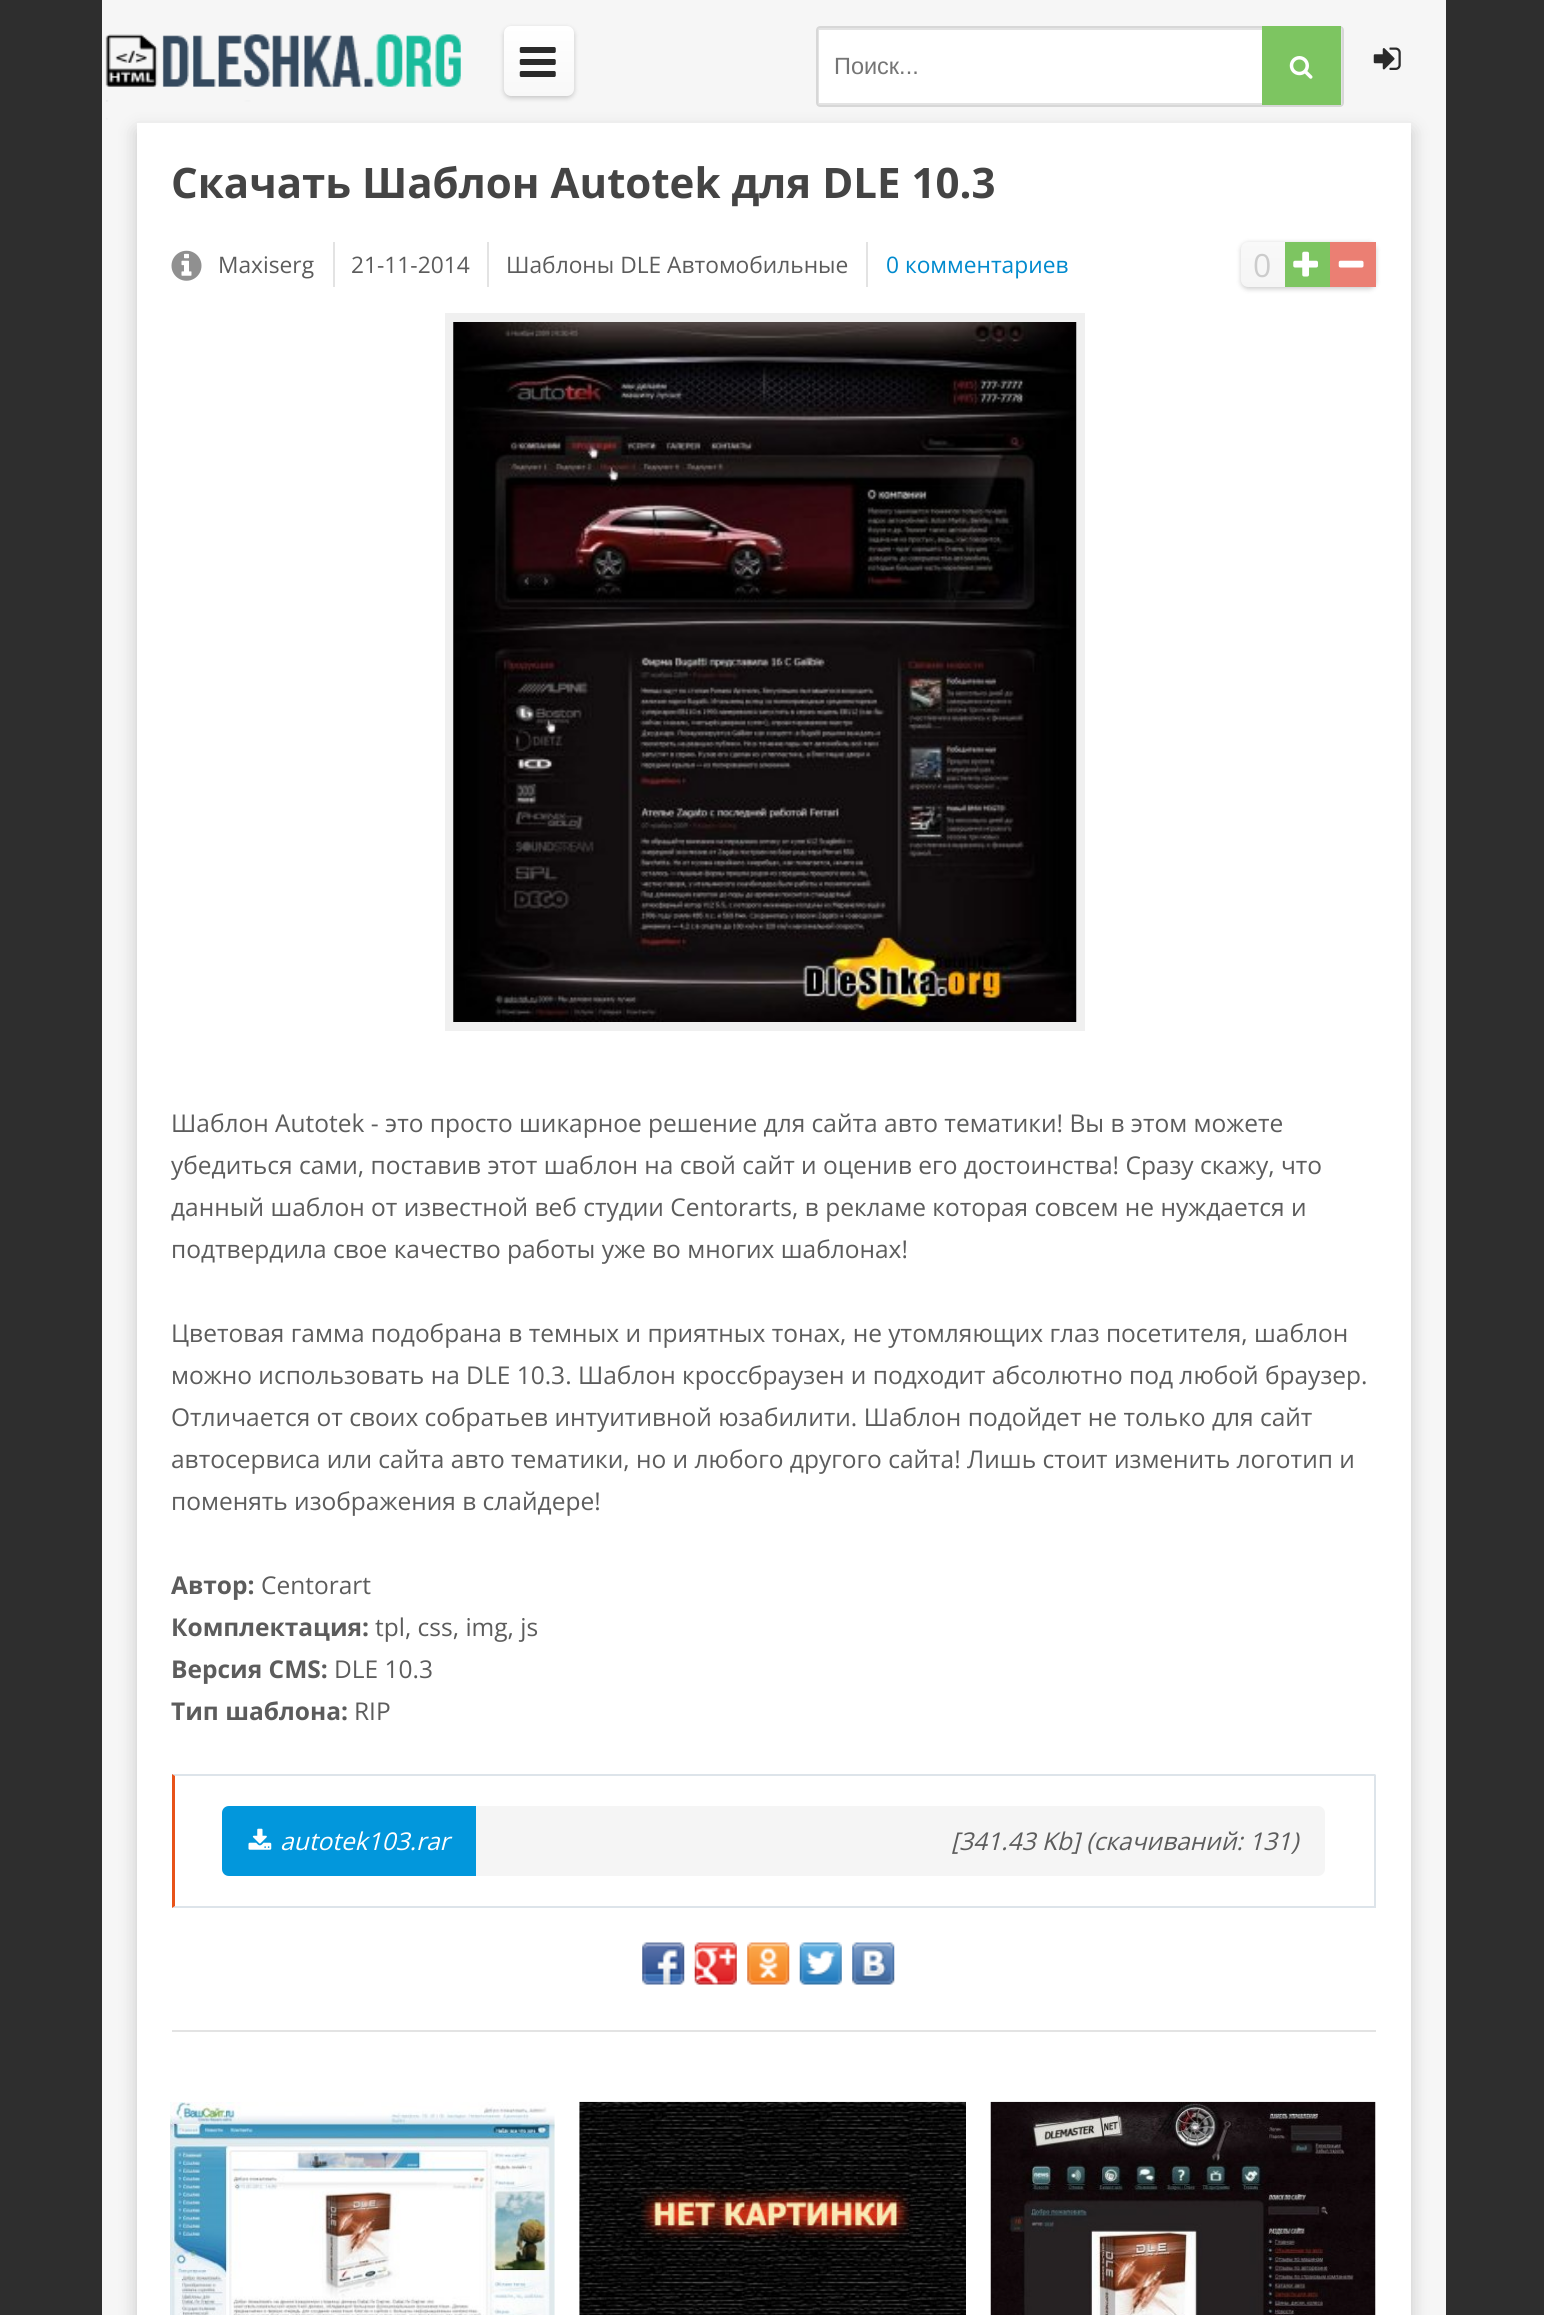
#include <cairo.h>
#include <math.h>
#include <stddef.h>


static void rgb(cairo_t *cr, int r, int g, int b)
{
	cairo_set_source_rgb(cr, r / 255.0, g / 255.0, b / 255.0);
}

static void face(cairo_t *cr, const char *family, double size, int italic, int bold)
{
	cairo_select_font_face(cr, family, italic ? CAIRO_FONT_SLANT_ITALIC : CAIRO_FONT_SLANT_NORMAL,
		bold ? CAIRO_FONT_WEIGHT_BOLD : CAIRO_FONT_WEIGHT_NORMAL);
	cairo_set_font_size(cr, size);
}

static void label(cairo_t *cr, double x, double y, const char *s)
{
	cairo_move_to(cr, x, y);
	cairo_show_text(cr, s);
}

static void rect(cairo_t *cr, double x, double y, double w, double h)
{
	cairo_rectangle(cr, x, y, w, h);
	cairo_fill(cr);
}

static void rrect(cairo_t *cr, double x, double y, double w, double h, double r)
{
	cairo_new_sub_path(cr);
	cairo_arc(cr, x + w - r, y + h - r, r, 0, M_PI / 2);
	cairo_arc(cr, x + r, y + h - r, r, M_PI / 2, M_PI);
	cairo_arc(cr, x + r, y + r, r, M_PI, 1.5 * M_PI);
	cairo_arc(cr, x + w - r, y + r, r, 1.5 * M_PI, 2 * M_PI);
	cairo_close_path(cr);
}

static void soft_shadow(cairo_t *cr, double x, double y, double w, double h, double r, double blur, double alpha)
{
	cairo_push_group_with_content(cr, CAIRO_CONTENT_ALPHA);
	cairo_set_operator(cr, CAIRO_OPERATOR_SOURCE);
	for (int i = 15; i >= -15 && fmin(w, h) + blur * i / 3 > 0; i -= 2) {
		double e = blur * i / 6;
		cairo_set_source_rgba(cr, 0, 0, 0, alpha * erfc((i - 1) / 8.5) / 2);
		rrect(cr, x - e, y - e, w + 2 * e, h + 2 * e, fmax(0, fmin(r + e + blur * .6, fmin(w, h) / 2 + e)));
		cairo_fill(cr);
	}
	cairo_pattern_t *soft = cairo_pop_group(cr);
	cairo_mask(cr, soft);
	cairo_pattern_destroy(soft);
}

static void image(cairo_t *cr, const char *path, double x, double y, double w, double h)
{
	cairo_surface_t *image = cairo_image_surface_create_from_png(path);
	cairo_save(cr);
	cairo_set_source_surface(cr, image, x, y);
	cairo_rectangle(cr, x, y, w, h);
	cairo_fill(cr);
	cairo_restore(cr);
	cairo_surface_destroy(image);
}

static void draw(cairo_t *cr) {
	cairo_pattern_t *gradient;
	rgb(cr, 46, 46, 46);
	cairo_paint(cr);
	rgb(cr, 246, 246, 246);
	rect(cr, 102, 0, 1344, 2315);
	image(cr, "image0.png", 105, 34, 356, 86);
	rgb(cr, 0, 0, 0);
	soft_shadow(cr, 504, 28, 70, 70, 7, 2.5, 0.2);
	gradient = cairo_pattern_create_linear(539, 26, 539, 96);
	cairo_pattern_add_color_stop_rgba(gradient, 0, 1, 1, 1, 1);
	cairo_pattern_add_color_stop_rgba(gradient, 1, 0.973, 0.973, 0.973, 1);
	cairo_set_source(cr, gradient);
	cairo_pattern_destroy(gradient);
	rrect(cr, 504, 26, 70, 70, 7);
	cairo_fill(cr);
	image(cr, "image1.png", 519, 47, 37, 30);
	rgb(cr, 255, 255, 255);
	rrect(cr, 816, 26, 528, 81, 4);
	cairo_fill(cr);
	rrect(cr, 818, 29, 523, 75, 1);
	rgb(cr, 227, 227, 227);
	cairo_stroke(cr);
	rrect(cr, 817, 27, 526, 79, 3);
	rgb(cr, 215, 215, 215);
	cairo_stroke(cr);
	face(cr, "Liberation Sans", 23.5, 0, 0);
	rgb(cr, 117, 117, 117);
	label(cr, 834, 74, "Поиск...");
	rgb(cr, 125, 197, 97);
	rect(cr, 1262, 26, 79, 79);
	image(cr, "image2.png", 1289, 56, 24, 23);
	image(cr, "image3.png", 1373, 47, 28, 23);
	rgb(cr, 0, 0, 0);
	soft_shadow(cr, 137, 131, 1274, 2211, 0, 9, 0.2);
	rgb(cr, 255, 255, 255);
	rect(cr, 137, 123, 1274, 2192);
	rgb(cr, 227, 227, 227);
	rect(cr, 172, 2030, 1204, 2);
	face(cr, "Open Sans", 42, 0, 1);
	rgb(cr, 68, 68, 68);
	label(cr, 171, 198, "Скачать Шаблон Autotek для DLE 10.3");
	image(cr, "image4.png", 171, 250, 31, 31);
	rgb(cr, 227, 227, 227);
	rect(cr, 333, 242, 2, 45);
	face(cr, "Open Sans", 22.75, 0, 0);
	rgb(cr, 92, 92, 92);
	label(cr, 218, 273, "Maxiserg");
	rgb(cr, 227, 227, 227);
	rect(cr, 487, 242, 2, 45);
	rgb(cr, 92, 92, 92);
	label(cr, 351, 273, "21-11-2014");
	rgb(cr, 227, 227, 227);
	rect(cr, 866, 242, 2, 45);
	rgb(cr, 92, 92, 92);
	label(cr, 506, 273, "Шаблоны DLE Автомобильные");
	rgb(cr, 0, 138, 206);
	label(cr, 886, 273, "0 комментариев");
	rgb(cr, 0, 0, 0);
	soft_shadow(cr, 1241, 243, 135, 46, 7, 2.5, 0.2);
	gradient = cairo_pattern_create_linear(1308, 242, 1308, 287);
	cairo_pattern_add_color_stop_rgba(gradient, 0, 0.976, 0.976, 0.976, 1);
	cairo_pattern_add_color_stop_rgba(gradient, 1, 0.961, 0.961, 0.961, 1);
	cairo_set_source(cr, gradient);
	cairo_pattern_destroy(gradient);
	rrect(cr, 1241, 242, 135, 45, 7);
	cairo_fill(cr);
	face(cr, "Open Sans", 32, 0, 0);
	rgb(cr, 204, 204, 204);
	label(cr, 1253, 277, "0");
	rgb(cr, 125, 197, 97);
	rect(cr, 1285, 242, 45, 45);
	image(cr, "image5.png", 1293, 251, 25, 26);
	rgb(cr, 235, 127, 115);
	rect(cr, 1330, 242, 46, 45);
	image(cr, "image6.png", 1338, 260, 26, 8);
	cairo_rectangle(cr, 449.5, 317.5, 631, 709);
	rgb(cr, 240, 240, 240);
	cairo_set_line_width(cr, 9);
	cairo_stroke(cr);
	image(cr, "image7.png", 453, 322, 624, 700);
	face(cr, "Open Sans", 24.5, 0, 0);
	rgb(cr, 92, 92, 92);
	label(cr, 171, 1132, "Шаблон Autotek - это просто шикарное решение для сайта авто тематики! Вы в этом можете");
	label(cr, 171, 1174, "убедиться сами, поставив этот шаблон на свой сайт и оценив его достоинства! Сразу скажу, что");
	label(cr, 171, 1216, "данный шаблон от известной веб студии Centorarts, в рекламе которая совсем не нуждается и");
	label(cr, 171, 1258, "подтвердила свое качество работы уже во многих шаблонах!");
	label(cr, 171, 1342, "Цветовая гамма подобрана в темных и приятных тонах, не утомляющих глаз посетителя, шаблон");
	label(cr, 171, 1384, "можно использовать на DLE 10.3. Шаблон кроссбраузен и подходит абсолютно под любой браузер.");
	label(cr, 171, 1426, "Отличается от своих собратьев интуитивной юзабилити. Шаблон подойдет не только для сайт");
	label(cr, 171, 1468, "автосервиса или сайта авто тематики, но и любого другого сайта! Лишь стоит изменить логотип и");
	label(cr, 171, 1510, "поменять изображения в слайдере!");
	face(cr, "Open Sans", 24.5, 0, 1);
	label(cr, 171, 1594, "Автор:");
	face(cr, "Open Sans", 24.5, 0, 0);
	label(cr, 261, 1594, "Centorart");
	face(cr, "Open Sans", 24.5, 0, 1);
	label(cr, 171, 1636, "Комплектация:");
	face(cr, "Open Sans", 24.5, 0, 0);
	label(cr, 375, 1636, "tpl, css, img, js");
	face(cr, "Open Sans", 24.5, 0, 1);
	label(cr, 171, 1678, "Версия CMS:");
	face(cr, "Open Sans", 24.5, 0, 0);
	label(cr, 334, 1678, "DLE 10.3");
	face(cr, "Open Sans", 24.5, 0, 1);
	label(cr, 171, 1720, "Тип шаблона:");
	face(cr, "Open Sans", 24.5, 0, 0);
	label(cr, 354, 1720, "RIP");
	rgb(cr, 221, 228, 234);
	cairo_new_path(cr);
	cairo_move_to(cr, 172, 1774);
	cairo_line_to(cr, 1376, 1774);
	cairo_line_to(cr, 1374, 1776);
	cairo_line_to(cr, 175, 1776);
	cairo_close_path(cr);
	cairo_fill(cr);
	rect(cr, 1374, 1775, 2, 133);
	cairo_new_path(cr);
	cairo_move_to(cr, 1376, 1908);
	cairo_line_to(cr, 172, 1908);
	cairo_line_to(cr, 175, 1906);
	cairo_line_to(cr, 1374, 1906);
	cairo_close_path(cr);
	cairo_fill(cr);
	rgb(cr, 232, 83, 25);
	cairo_new_path(cr);
	cairo_move_to(cr, 172, 1908);
	cairo_line_to(cr, 172, 1774);
	cairo_line_to(cr, 175, 1776);
	cairo_line_to(cr, 175, 1906);
	cairo_close_path(cr);
	cairo_fill(cr);
	rgb(cr, 245, 245, 245);
	rrect(cr, 222, 1806, 1103, 70, 7);
	cairo_fill(cr);
	rgb(cr, 2, 151, 220);
	cairo_new_path(cr);
	cairo_move_to(cr, 229, 1806);
	cairo_line_to(cr, 476, 1806);
	cairo_line_to(cr, 476, 1876);
	cairo_line_to(cr, 229, 1876);
	cairo_curve_to(cr, 225, 1876, 222, 1873, 222, 1869);
	cairo_line_to(cr, 222, 1813);
	cairo_curve_to(cr, 222, 1809, 225, 1806, 229, 1806);
	cairo_close_path(cr);
	cairo_fill(cr);
	image(cr, "image8.png", 248, 1828, 24, 22);
	face(cr, "Open Sans", 24.5, 1, 0);
	rgb(cr, 255, 255, 255);
	label(cr, 280, 1850, "autotek103.rar");
	rgb(cr, 92, 92, 92);
	label(cr, 951, 1850, "[341.43 Kb] (cкачиваний: 131)");
	image(cr, "image9.png", 642, 1942, 43, 43);
	image(cr, "image10.png", 694, 1942, 43, 43);
	image(cr, "image11.png", 747, 1942, 43, 43);
	image(cr, "image12.png", 799, 1942, 43, 43);
	image(cr, "image13.png", 852, 1942, 43, 43);
	image(cr, "image14.png", 170, 2102, 385, 213);
	image(cr, "image15.png", 579, 2101, 387, 214);
	image(cr, "image16.png", 990, 2101, 386, 214);
}

int main(void) {
	cairo_surface_t *surface = cairo_image_surface_create(CAIRO_FORMAT_RGB24, 1544, 2315);
	cairo_t *cr = cairo_create(surface);
	cairo_font_options_t *options = cairo_font_options_create();
	cairo_font_options_set_hint_metrics(options, CAIRO_HINT_METRICS_OFF);
	cairo_font_options_set_hint_style(options, CAIRO_HINT_STYLE_NONE);
	cairo_set_font_options(cr, options);
	cairo_set_miter_limit(cr, 4);
	draw(cr);
	cairo_surface_write_to_png(surface, "render.png");
	cairo_font_options_destroy(options);
	cairo_destroy(cr);
	cairo_surface_destroy(surface);
	return 0;
}
